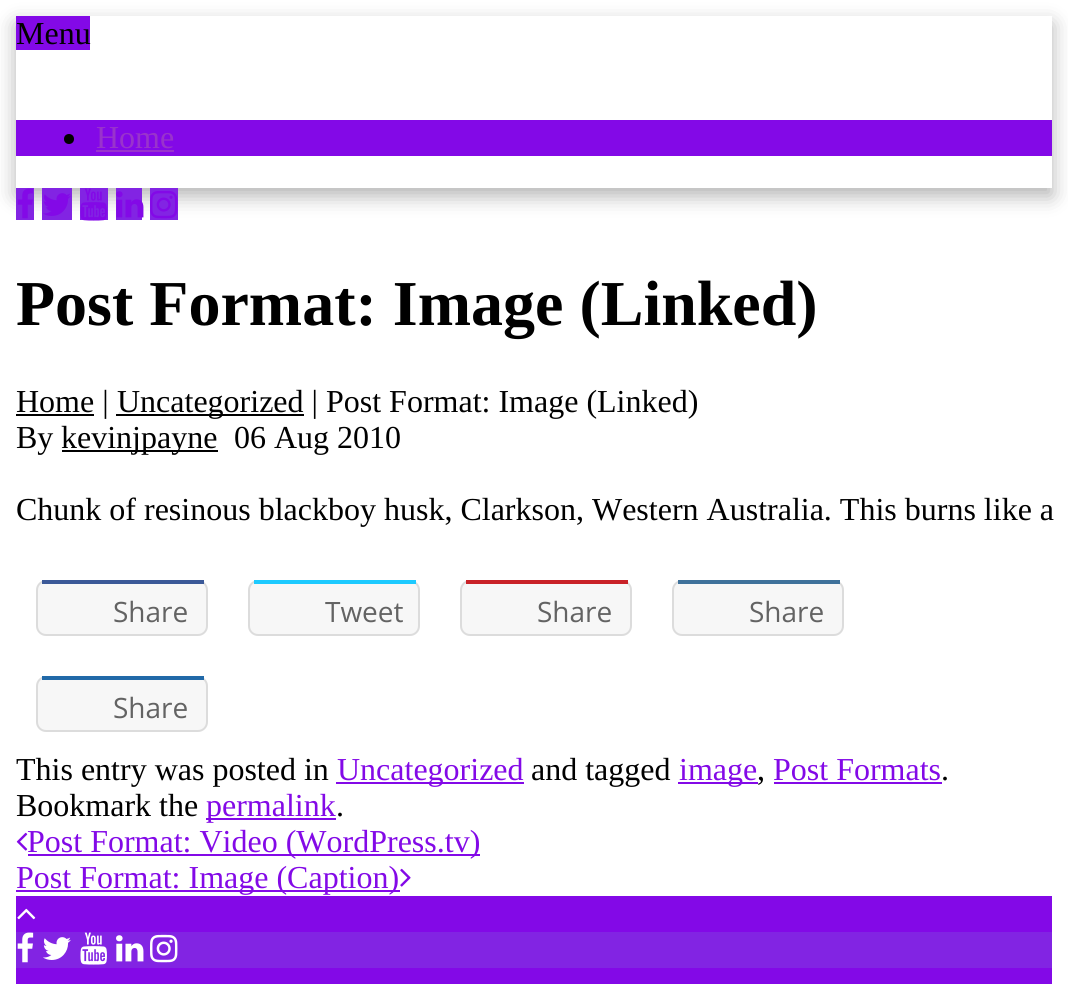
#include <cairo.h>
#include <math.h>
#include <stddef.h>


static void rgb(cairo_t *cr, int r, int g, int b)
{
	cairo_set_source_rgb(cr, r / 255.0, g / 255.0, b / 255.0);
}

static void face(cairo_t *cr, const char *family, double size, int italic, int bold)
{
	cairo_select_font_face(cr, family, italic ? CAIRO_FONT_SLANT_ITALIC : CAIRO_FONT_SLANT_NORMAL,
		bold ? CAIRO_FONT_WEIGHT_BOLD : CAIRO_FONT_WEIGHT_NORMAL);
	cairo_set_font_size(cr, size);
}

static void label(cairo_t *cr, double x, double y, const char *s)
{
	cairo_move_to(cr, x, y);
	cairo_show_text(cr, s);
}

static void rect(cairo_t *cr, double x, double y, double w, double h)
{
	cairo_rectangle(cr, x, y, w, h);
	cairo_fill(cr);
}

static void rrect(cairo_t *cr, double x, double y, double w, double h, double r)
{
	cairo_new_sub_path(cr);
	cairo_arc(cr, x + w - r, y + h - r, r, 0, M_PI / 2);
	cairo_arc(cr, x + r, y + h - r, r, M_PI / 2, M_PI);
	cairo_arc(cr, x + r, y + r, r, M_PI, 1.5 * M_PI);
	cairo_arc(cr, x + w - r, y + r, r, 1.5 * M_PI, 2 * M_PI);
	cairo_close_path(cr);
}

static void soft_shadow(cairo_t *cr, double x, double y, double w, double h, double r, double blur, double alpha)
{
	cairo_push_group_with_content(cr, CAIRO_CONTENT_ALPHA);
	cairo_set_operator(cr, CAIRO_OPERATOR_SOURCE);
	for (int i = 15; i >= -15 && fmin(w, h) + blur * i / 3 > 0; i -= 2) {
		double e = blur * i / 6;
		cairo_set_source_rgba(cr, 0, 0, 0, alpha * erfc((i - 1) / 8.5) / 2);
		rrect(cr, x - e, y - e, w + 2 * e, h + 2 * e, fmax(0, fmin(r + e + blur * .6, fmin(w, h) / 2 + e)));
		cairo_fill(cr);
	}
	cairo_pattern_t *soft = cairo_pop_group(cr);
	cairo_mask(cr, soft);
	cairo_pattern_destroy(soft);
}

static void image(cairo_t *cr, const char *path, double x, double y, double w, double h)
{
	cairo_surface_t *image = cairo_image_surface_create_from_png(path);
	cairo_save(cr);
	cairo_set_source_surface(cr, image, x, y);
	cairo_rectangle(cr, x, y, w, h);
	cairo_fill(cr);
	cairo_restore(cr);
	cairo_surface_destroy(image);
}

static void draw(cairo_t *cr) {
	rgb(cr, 255, 255, 255);
	cairo_paint(cr);
	cairo_save(cr);
	cairo_set_fill_rule(cr, CAIRO_FILL_RULE_EVEN_ODD);
	cairo_new_path(cr);
	cairo_move_to(cr, 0, 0);
	cairo_line_to(cr, 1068, 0);
	cairo_line_to(cr, 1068, 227);
	cairo_line_to(cr, 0, 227);
	cairo_close_path(cr);
	cairo_move_to(cr, 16, 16);
	cairo_line_to(cr, 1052, 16);
	cairo_line_to(cr, 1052, 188);
	cairo_line_to(cr, 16, 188);
	cairo_close_path(cr);
	cairo_clip(cr);
	rgb(cr, 0, 0, 0);
	soft_shadow(cr, 16, 24, 1036, 172, 0, 10, 0.3);
	cairo_restore(cr);
	rgb(cr, 131, 9, 231);
	rect(cr, 16, 16, 74, 34);
	face(cr, "Liberation Serif", 32, 0, 0);
	rgb(cr, 0, 0, 0);
	label(cr, 16, 44, "Menu");
	rgb(cr, 131, 9, 231);
	rect(cr, 16, 120, 1036, 36);
	rgb(cr, 0, 0, 0);
	cairo_new_path(cr);
	cairo_arc(cr, 69, 139, 5, 0, 2 * M_PI);
	cairo_fill(cr);
	rgb(cr, 153, 51, 204);
	label(cr, 96, 148, "Home");
	rect(cr, 96, 150, 78, 2);
	rgb(cr, 130, 36, 227);
	rect(cr, 16, 188, 18, 32);
	image(cr, "image0.png", 17, 188, 16, 31);
	rect(cr, 42, 188, 30, 32);
	image(cr, "image1.png", 43, 193, 28, 23);
	rect(cr, 80, 188, 28, 32);
	image(cr, "image2.png", 80, 188, 27, 33);
	rect(cr, 116, 188, 26, 32);
	image(cr, "image3.png", 116, 191, 28, 27);
	rect(cr, 150, 188, 28, 32);
	image(cr, "image4.png", 150, 191, 28, 28);
	face(cr, "Liberation Serif", 64, 0, 1);
	rgb(cr, 0, 0, 0);
	label(cr, 16, 325, "Post Format: Image (Linked)");
	rect(cr, 16, 414, 78, 2);
	face(cr, "Liberation Serif", 32, 0, 0);
	label(cr, 16, 412, "Home |");
	rect(cr, 116, 414, 188, 2);
	label(cr, 117, 412, "Uncategorized | Post Format: Image (Linked)");
	label(cr, 16, 448, "By");
	rect(cr, 62, 450, 156, 2);
	label(cr, 61, 448, "kevinjpayne");
	label(cr, 234, 448, "06 Aug 2010");
	label(cr, 16, 520, "Chunk of resinous blackboy husk, Clarkson, Western Australia. This burns like a");
	rgb(cr, 247, 247, 247);
	rrect(cr, 37, 581, 170, 54, 9);
	cairo_fill_preserve(cr);
	rgb(cr, 220, 220, 220);
	cairo_stroke(cr);
	rgb(cr, 59, 89, 152);
	rect(cr, 42, 580, 162, 4);
	face(cr, "Open Sans", 28, 0, 0);
	rgb(cr, 99, 99, 99);
	label(cr, 113, 622, "Share");
	rgb(cr, 247, 247, 247);
	rrect(cr, 249, 581, 170, 54, 9);
	cairo_fill_preserve(cr);
	rgb(cr, 220, 220, 220);
	cairo_stroke(cr);
	rgb(cr, 29, 202, 255);
	rect(cr, 254, 580, 162, 4);
	rgb(cr, 99, 99, 99);
	label(cr, 325, 622, "Tweet");
	rgb(cr, 247, 247, 247);
	rrect(cr, 461, 581, 170, 54, 9);
	cairo_fill_preserve(cr);
	rgb(cr, 220, 220, 220);
	cairo_stroke(cr);
	rgb(cr, 201, 34, 40);
	rect(cr, 466, 580, 162, 4);
	rgb(cr, 99, 99, 99);
	label(cr, 537, 622, "Share");
	rgb(cr, 247, 247, 247);
	rrect(cr, 673, 581, 170, 54, 9);
	cairo_fill_preserve(cr);
	rgb(cr, 220, 220, 220);
	cairo_stroke(cr);
	rgb(cr, 63, 114, 155);
	rect(cr, 678, 580, 162, 4);
	rgb(cr, 99, 99, 99);
	label(cr, 749, 622, "Share");
	rgb(cr, 247, 247, 247);
	rrect(cr, 37, 677, 170, 54, 9);
	cairo_fill_preserve(cr);
	rgb(cr, 220, 220, 220);
	cairo_stroke(cr);
	rgb(cr, 33, 105, 168);
	rect(cr, 42, 676, 162, 4);
	rgb(cr, 99, 99, 99);
	label(cr, 113, 718, "Share");
	face(cr, "Liberation Serif", 32, 0, 0);
	rgb(cr, 0, 0, 0);
	label(cr, 16, 780, "This entry was posted in");
	rgb(cr, 131, 9, 231);
	rect(cr, 336, 782, 188, 2);
	label(cr, 337, 780, "Uncategorized");
	rgb(cr, 0, 0, 0);
	label(cr, 531, 780, "and tagged");
	rgb(cr, 131, 9, 231);
	rect(cr, 678, 782, 80, 2);
	label(cr, 679, 780, "image");
	rgb(cr, 0, 0, 0);
	label(cr, 757, 780, ",");
	rgb(cr, 131, 9, 231);
	label(cr, 773, 780, "Post Formats");
	rect(cr, 774, 782, 168, 2);
	rgb(cr, 0, 0, 0);
	label(cr, 941, 780, ".");
	label(cr, 16, 816, "Bookmark the");
	rgb(cr, 131, 9, 231);
	rect(cr, 206, 818, 130, 2);
	label(cr, 206, 816, "permalink");
	rgb(cr, 0, 0, 0);
	label(cr, 336, 816, ".");
	image(cr, "image5.png", 16, 832, 12, 19);
	rgb(cr, 131, 9, 231);
	rect(cr, 28, 854, 452, 2);
	label(cr, 27, 852, "Post Format: Video (WordPress.tv)");
	rect(cr, 16, 890, 384, 2);
	label(cr, 16, 888, "Post Format: Image (Caption)");
	image(cr, "image6.png", 400, 868, 11, 19);
	rgb(cr, 130, 36, 227);
	rect(cr, 16, 932, 1036, 36);
	rgb(cr, 131, 9, 231);
	rect(cr, 16, 896, 1036, 36);
	image(cr, "image7.png", 17, 908, 19, 12);
	image(cr, "image8.png", 17, 932, 17, 31);
	image(cr, "image9.png", 43, 937, 28, 23);
	image(cr, "image10.png", 80, 932, 27, 33);
	image(cr, "image11.png", 116, 935, 28, 27);
	image(cr, "image12.png", 150, 934, 28, 29);
	rect(cr, 16, 968, 1036, 16);
}

int main(void) {
	cairo_surface_t *surface = cairo_image_surface_create(CAIRO_FORMAT_RGB24, 1068, 984);
	cairo_t *cr = cairo_create(surface);
	cairo_font_options_t *options = cairo_font_options_create();
	cairo_font_options_set_hint_metrics(options, CAIRO_HINT_METRICS_OFF);
	cairo_font_options_set_hint_style(options, CAIRO_HINT_STYLE_NONE);
	cairo_set_font_options(cr, options);
	cairo_set_miter_limit(cr, 4);
	draw(cr);
	cairo_surface_write_to_png(surface, "render.png");
	cairo_font_options_destroy(options);
	cairo_destroy(cr);
	cairo_surface_destroy(surface);
	return 0;
}
